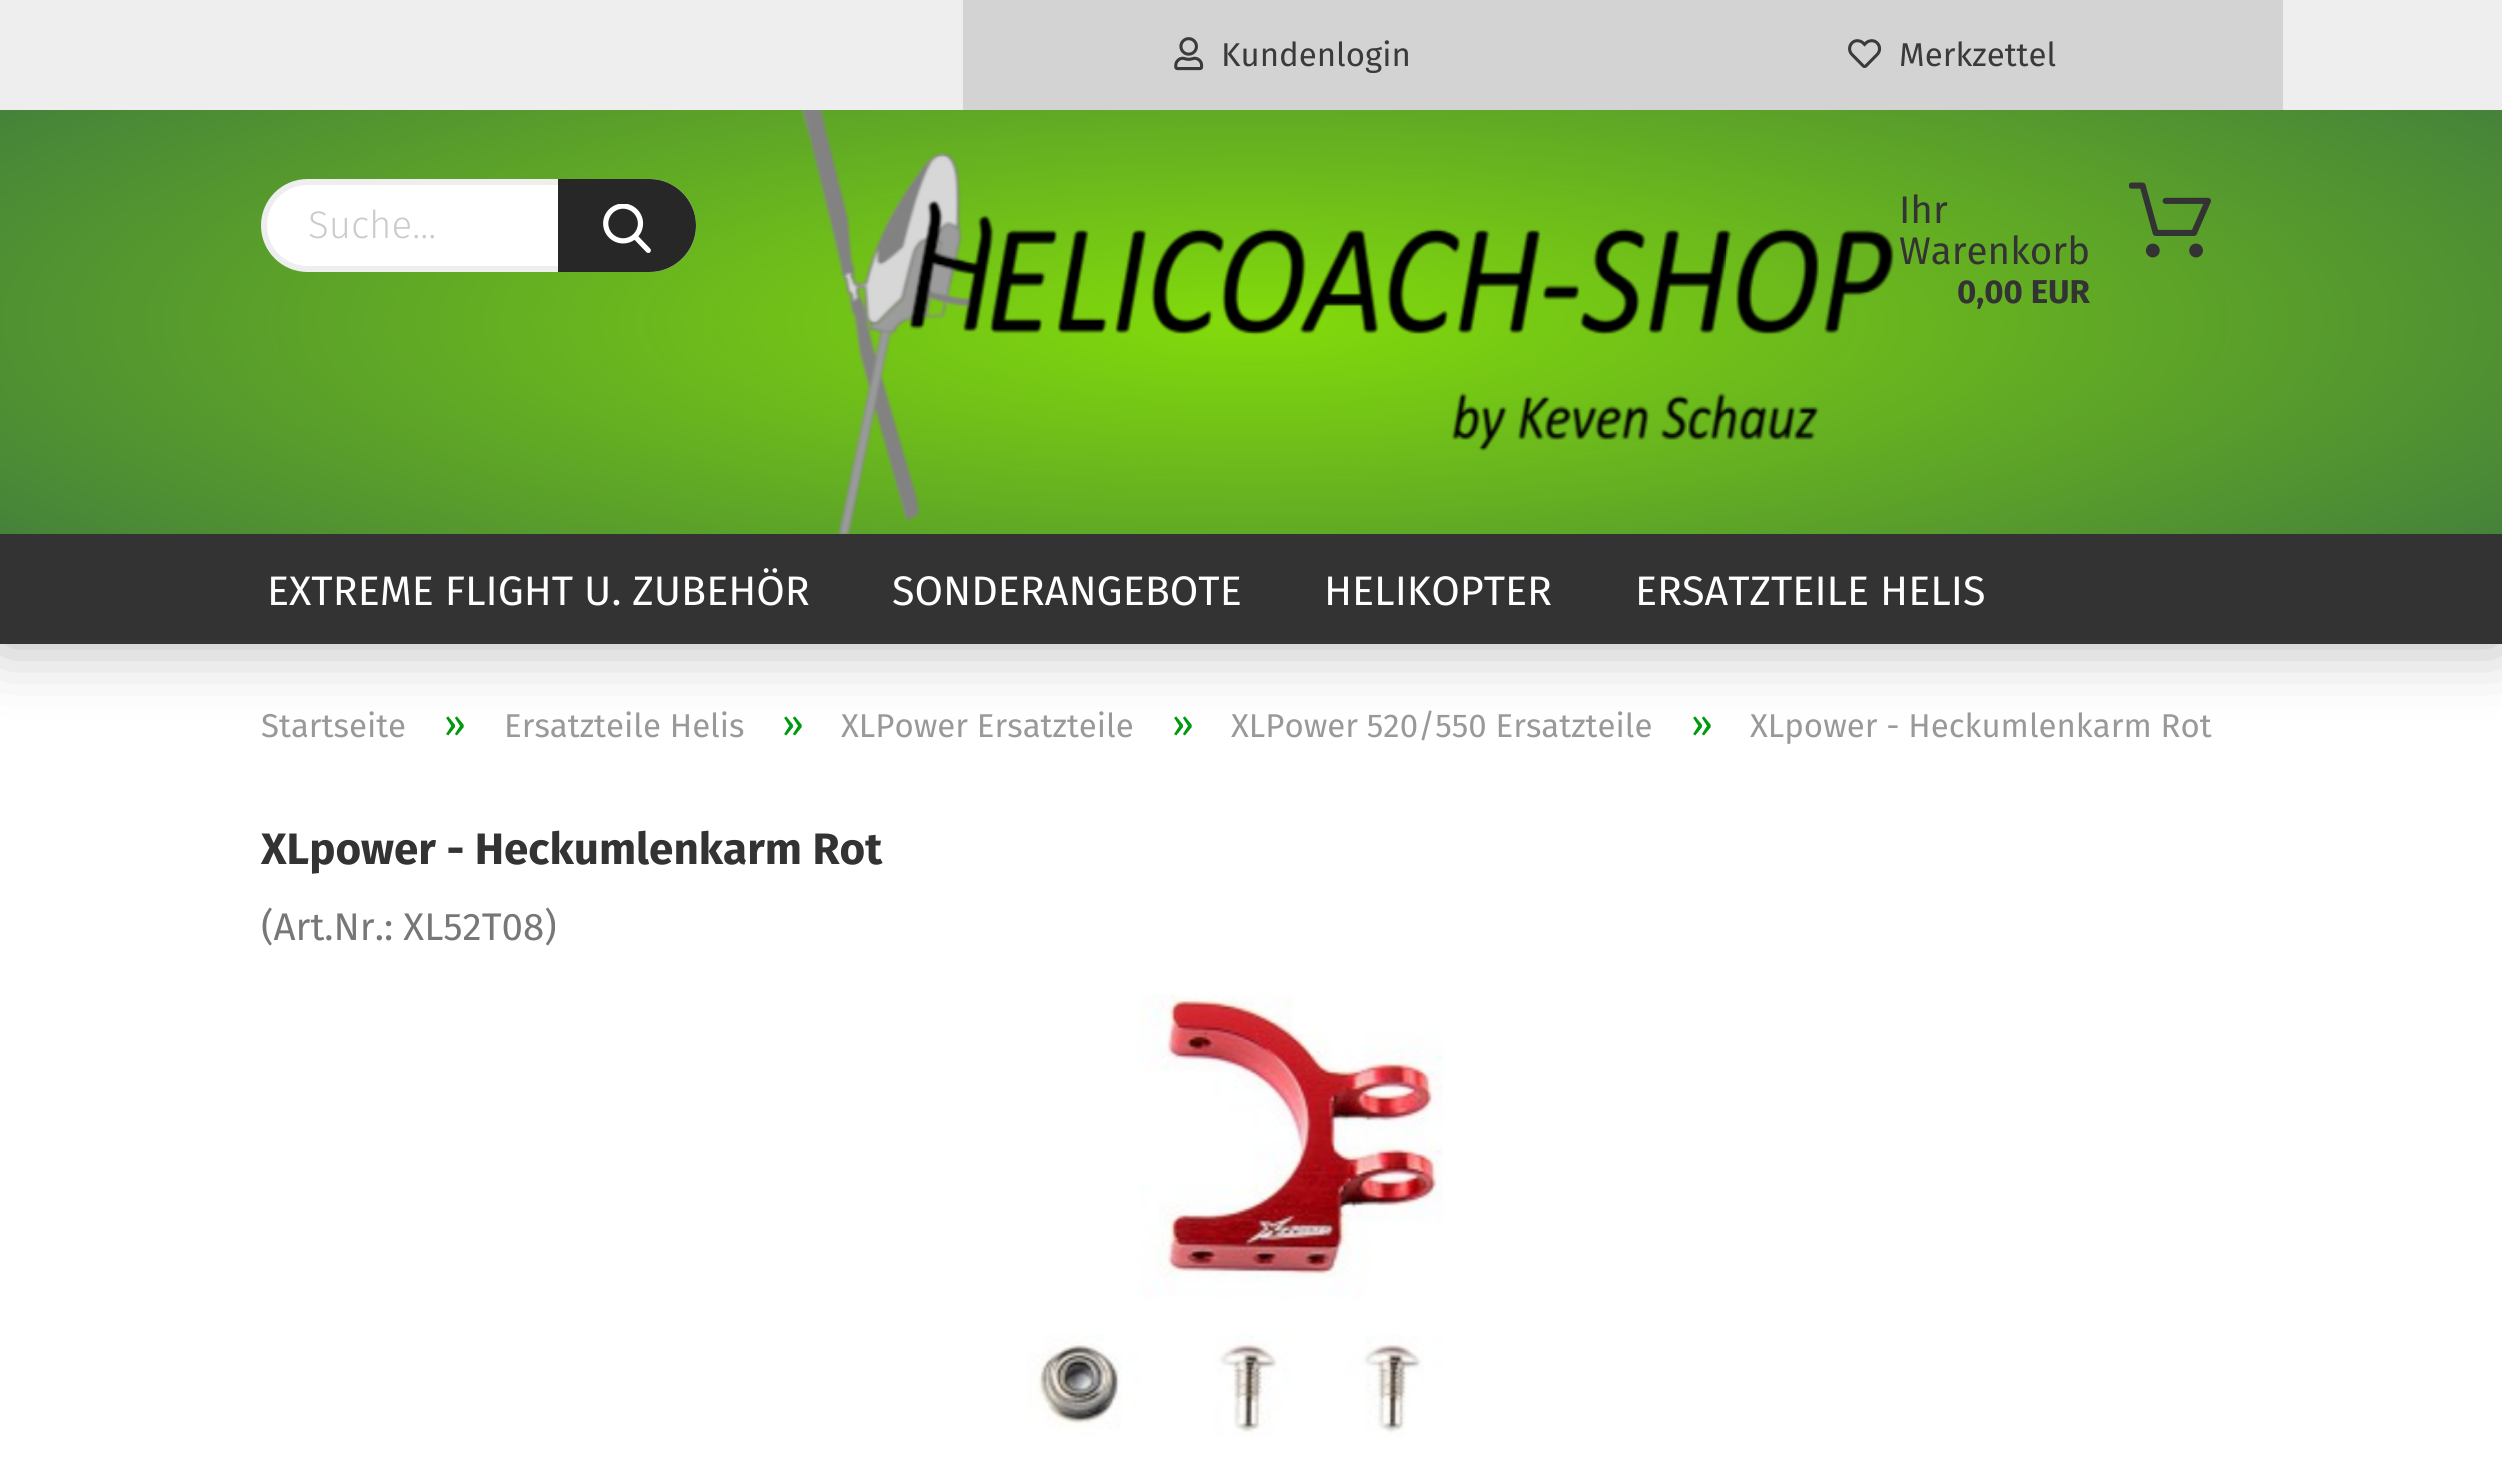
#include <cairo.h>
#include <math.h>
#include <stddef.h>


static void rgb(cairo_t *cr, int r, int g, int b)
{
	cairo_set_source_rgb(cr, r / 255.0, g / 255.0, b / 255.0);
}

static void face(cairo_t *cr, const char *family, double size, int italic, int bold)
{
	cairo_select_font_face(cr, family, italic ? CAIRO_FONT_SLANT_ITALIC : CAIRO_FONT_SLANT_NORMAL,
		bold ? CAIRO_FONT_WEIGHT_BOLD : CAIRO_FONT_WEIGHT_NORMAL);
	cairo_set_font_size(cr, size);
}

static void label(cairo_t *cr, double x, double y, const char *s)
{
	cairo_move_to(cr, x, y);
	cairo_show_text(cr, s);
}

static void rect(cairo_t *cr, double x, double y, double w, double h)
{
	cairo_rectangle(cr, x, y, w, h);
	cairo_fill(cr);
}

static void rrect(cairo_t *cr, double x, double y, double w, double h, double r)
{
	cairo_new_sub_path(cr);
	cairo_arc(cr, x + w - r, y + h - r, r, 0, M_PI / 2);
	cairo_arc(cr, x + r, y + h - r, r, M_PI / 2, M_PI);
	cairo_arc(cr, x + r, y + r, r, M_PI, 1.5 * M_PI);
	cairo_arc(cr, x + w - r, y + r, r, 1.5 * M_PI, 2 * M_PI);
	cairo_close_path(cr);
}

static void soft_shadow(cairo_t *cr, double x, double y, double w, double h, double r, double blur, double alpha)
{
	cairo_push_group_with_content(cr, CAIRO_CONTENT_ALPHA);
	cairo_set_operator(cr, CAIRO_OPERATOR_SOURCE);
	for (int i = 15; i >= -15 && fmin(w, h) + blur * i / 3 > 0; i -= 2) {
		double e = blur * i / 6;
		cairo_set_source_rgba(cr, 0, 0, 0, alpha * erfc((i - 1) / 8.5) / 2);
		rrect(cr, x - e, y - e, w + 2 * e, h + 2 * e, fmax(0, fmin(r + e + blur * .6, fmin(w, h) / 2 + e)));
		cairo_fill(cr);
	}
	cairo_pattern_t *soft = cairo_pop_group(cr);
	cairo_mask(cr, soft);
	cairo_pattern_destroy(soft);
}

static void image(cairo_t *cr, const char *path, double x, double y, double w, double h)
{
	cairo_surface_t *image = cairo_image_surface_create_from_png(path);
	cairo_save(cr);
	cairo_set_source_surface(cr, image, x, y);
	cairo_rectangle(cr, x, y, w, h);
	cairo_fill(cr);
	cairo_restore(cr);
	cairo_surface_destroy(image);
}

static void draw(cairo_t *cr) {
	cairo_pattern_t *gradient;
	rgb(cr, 255, 255, 255);
	cairo_paint(cr);
	rgb(cr, 0, 0, 0);
	soft_shadow(cr, 0, 0, 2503, 644, 0, 34.5, 0.3);
	gradient = cairo_pattern_create_radial(0, 0, 0, 0, 0, 1);
	cairo_pattern_set_matrix(gradient, &(cairo_matrix_t){1.0 / 1770, 0, 0, 1.0 / 455, -1.0 * 1251 / 1770, -1.0 * 322 / 455});
	cairo_pattern_add_color_stop_rgba(gradient, 0, 0.514, 0.859, 0.039, 1);
	cairo_pattern_add_color_stop_rgba(gradient, 1, 0.227, 0.447, 0.263, 1);
	cairo_set_source(cr, gradient);
	cairo_pattern_destroy(gradient);
	rect(cr, 0, 110, 2502, 424);
	rgb(cr, 238, 238, 238);
	rect(cr, 0, 0, 2502, 110);
	rgb(cr, 211, 211, 211);
	rect(cr, 963, 0, 1320, 110);
	image(cr, "image0.png", 1174, 37, 30, 34);
	face(cr, "Fira Sans", 33, 0, 0);
	rgb(cr, 58, 58, 58);
	label(cr, 1221, 66, "Kundenlogin");
	image(cr, "image1.png", 1848, 39, 34, 29);
	label(cr, 1899, 66, "Merkzettel");
	rgb(cr, 255, 255, 255);
	rrect(cr, 264, 182, 429, 87, 43.5);
	cairo_fill_preserve(cr);
	rgb(cr, 238, 238, 238);
	cairo_set_line_width(cr, 6);
	cairo_stroke(cr);
	face(cr, "Fira Sans Light", 38.5, 0, 0);
	rgb(cr, 204, 204, 204);
	label(cr, 308, 238, "Suche...");
	rgb(cr, 39, 39, 39);
	cairo_new_path(cr);
	cairo_move_to(cr, 558, 179);
	cairo_line_to(cr, 649.5, 179);
	cairo_curve_to(cr, 675, 179, 696, 200, 696, 225.5);
	cairo_curve_to(cr, 696, 251, 675, 272, 649.5, 272);
	cairo_line_to(cr, 558, 272);
	cairo_close_path(cr);
	cairo_fill(cr);
	image(cr, "image2.png", 603, 204, 48, 49);
	image(cr, "image3.png", 801, 110, 1093, 424);
	face(cr, "Fira Sans", 38.5, 0, 0);
	rgb(cr, 51, 51, 51);
	label(cr, 1899, 223, "Ihr");
	label(cr, 1899, 264, "Warenkorb");
	face(cr, "Fira Sans", 33, 0, 1);
	label(cr, 1957, 303, "0,00 EUR");
	image(cr, "image4.png", 2129, 182, 82, 76);
	rect(cr, 0, 534, 2502, 110);
	face(cr, "Fira Sans", 41.25, 0, 0);
	rgb(cr, 255, 255, 255);
	label(cr, 267, 605, "EXTREME FLIGHT U. ZUBEHÖR");
	label(cr, 892, 605, "SONDERANGEBOTE");
	label(cr, 1324, 605, "HELIKOPTER");
	label(cr, 1635, 605, "ERSATZTEILE HELIS");
	face(cr, "Fira Sans", 33, 0, 0);
	rgb(cr, 153, 153, 153);
	label(cr, 261, 737, "Startseite");
	face(cr, "Fira Sans", 38.5, 0, 0);
	rgb(cr, 0, 153, 16);
	label(cr, 444, 737, "»");
	face(cr, "Fira Sans", 33, 0, 0);
	rgb(cr, 153, 153, 153);
	label(cr, 504, 737, "Ersatzteile Helis");
	face(cr, "Fira Sans", 38.5, 0, 0);
	rgb(cr, 0, 153, 16);
	label(cr, 782, 737, "»");
	face(cr, "Fira Sans", 33, 0, 0);
	rgb(cr, 153, 153, 153);
	label(cr, 841, 737, "XLPower Ersatzteile");
	face(cr, "Fira Sans", 38.5, 0, 0);
	rgb(cr, 0, 153, 16);
	label(cr, 1172, 737, "»");
	face(cr, "Fira Sans", 33, 0, 0);
	rgb(cr, 153, 153, 153);
	label(cr, 1231, 737, "XLPower 520/550 Ersatzteile");
	face(cr, "Fira Sans", 38.5, 0, 0);
	rgb(cr, 0, 153, 16);
	label(cr, 1691, 737, "»");
	face(cr, "Fira Sans", 33, 0, 0);
	rgb(cr, 153, 153, 153);
	label(cr, 1750, 737, "XLpower - Heckumlenkarm Rot");
	face(cr, "Fira Sans", 44, 0, 1);
	rgb(cr, 51, 51, 51);
	label(cr, 261, 864, "XLpower - Heckumlenkarm Rot");
	face(cr, "Fira Sans", 38.5, 0, 0);
	rgb(cr, 119, 119, 119);
	label(cr, 261, 940, "(Art.Nr.: XL52T08)");
	image(cr, "image5.png", 1027, 994, 417, 443);
}

int main(void) {
	cairo_surface_t *surface = cairo_image_surface_create(CAIRO_FORMAT_RGB24, 2502, 1478);
	cairo_t *cr = cairo_create(surface);
	cairo_font_options_t *options = cairo_font_options_create();
	cairo_font_options_set_hint_metrics(options, CAIRO_HINT_METRICS_OFF);
	cairo_font_options_set_hint_style(options, CAIRO_HINT_STYLE_NONE);
	cairo_set_font_options(cr, options);
	cairo_set_miter_limit(cr, 4);
	draw(cr);
	cairo_surface_write_to_png(surface, "render.png");
	cairo_font_options_destroy(options);
	cairo_destroy(cr);
	cairo_surface_destroy(surface);
	return 0;
}
